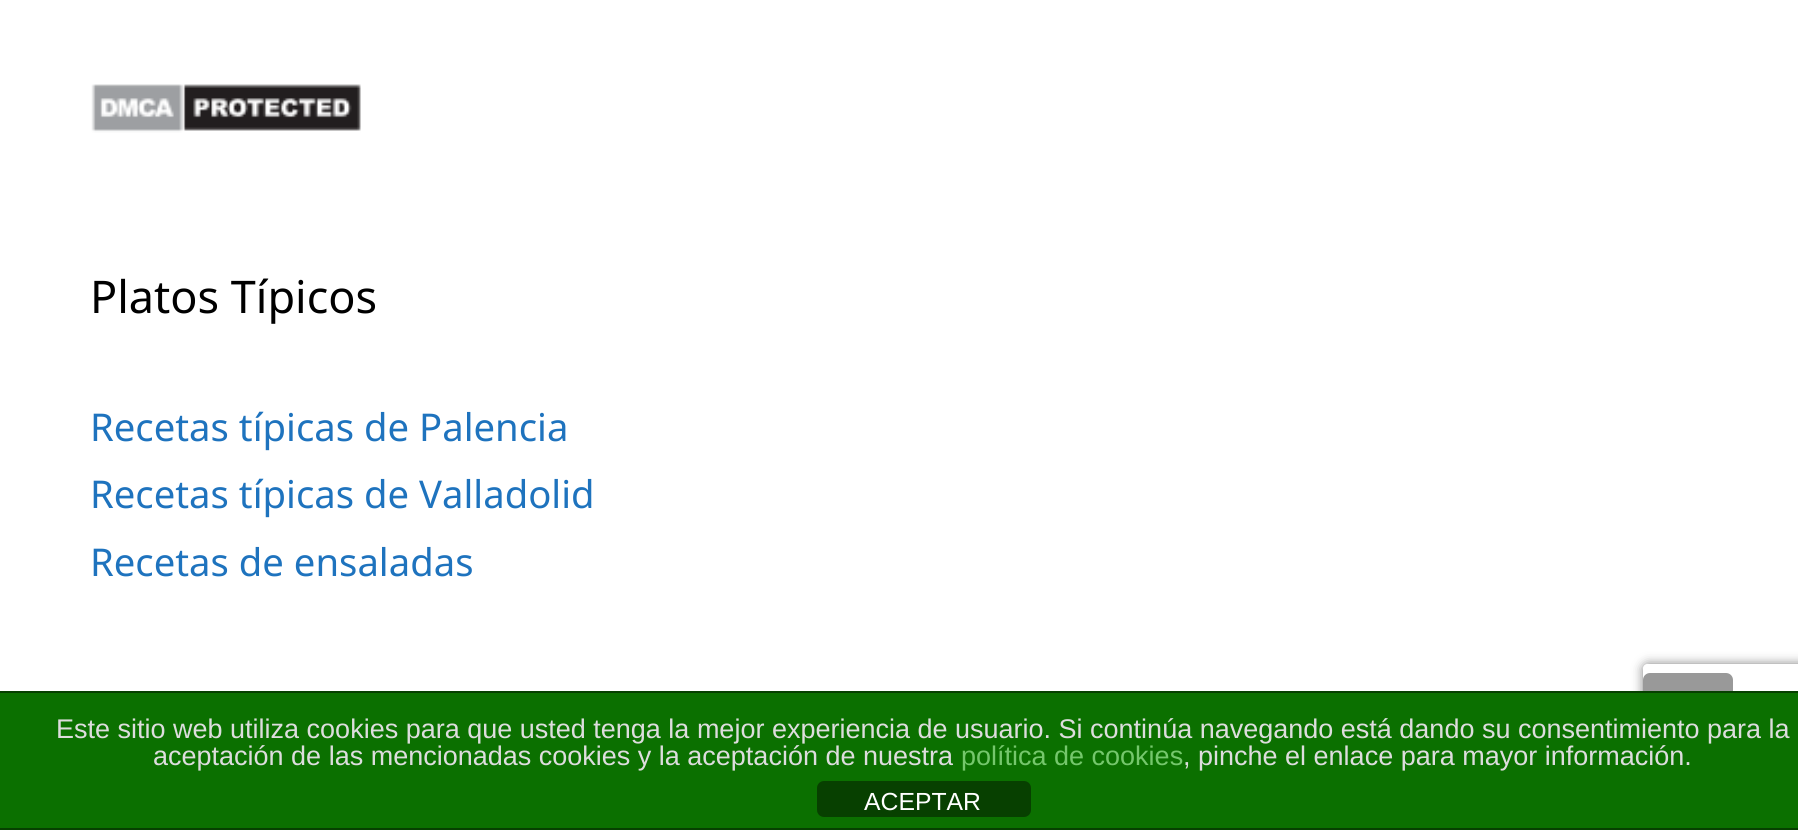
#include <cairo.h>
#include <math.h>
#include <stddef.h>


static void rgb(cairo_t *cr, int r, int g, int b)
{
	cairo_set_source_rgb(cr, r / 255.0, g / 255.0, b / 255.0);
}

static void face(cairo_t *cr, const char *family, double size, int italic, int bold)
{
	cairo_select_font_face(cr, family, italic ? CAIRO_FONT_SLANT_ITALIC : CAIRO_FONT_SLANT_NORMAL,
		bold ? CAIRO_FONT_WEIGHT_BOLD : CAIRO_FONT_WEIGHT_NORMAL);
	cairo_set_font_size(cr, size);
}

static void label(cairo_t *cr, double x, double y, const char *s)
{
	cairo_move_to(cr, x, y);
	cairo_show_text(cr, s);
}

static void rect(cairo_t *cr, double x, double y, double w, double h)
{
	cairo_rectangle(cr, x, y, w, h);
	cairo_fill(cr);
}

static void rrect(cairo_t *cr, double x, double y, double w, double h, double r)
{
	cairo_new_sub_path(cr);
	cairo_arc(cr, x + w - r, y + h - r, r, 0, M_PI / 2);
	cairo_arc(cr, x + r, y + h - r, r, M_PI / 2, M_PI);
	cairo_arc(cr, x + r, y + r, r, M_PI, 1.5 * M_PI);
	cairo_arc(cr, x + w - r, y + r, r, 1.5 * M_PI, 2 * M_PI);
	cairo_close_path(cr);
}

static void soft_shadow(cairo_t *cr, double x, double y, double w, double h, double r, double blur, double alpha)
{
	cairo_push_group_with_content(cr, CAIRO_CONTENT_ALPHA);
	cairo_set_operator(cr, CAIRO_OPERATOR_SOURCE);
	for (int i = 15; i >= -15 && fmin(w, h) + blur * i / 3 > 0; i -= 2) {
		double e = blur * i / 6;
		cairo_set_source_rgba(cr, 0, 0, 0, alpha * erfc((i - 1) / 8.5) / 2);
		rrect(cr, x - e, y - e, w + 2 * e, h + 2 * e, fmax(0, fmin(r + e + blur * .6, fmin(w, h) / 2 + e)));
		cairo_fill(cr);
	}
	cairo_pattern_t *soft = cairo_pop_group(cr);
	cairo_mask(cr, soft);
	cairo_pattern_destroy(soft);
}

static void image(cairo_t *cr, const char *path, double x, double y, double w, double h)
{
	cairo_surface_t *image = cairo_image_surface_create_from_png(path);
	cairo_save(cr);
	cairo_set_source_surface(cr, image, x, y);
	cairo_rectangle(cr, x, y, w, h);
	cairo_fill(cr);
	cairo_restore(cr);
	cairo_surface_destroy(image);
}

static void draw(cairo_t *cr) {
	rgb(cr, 255, 255, 255);
	cairo_paint(cr);
	image(cr, "image0.png", 91, 84, 270, 49);
	face(cr, "Noto Sans", 45, 0, 0);
	rgb(cr, 0, 0, 0);
	label(cr, 90, 313, "Platos Típicos");
	face(cr, "Noto Sans", 38.25, 0, 0);
	rgb(cr, 30, 115, 190);
	label(cr, 90, 441, "Recetas típicas de Palencia");
	label(cr, 90, 508, "Recetas típicas de Valladolid");
	label(cr, 90, 576, "Recetas de ensaladas");
	cairo_save(cr);
	cairo_set_fill_rule(cr, CAIRO_FILL_RULE_EVEN_ODD);
	cairo_new_path(cr);
	cairo_move_to(cr, 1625, 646);
	cairo_line_to(cr, 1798, 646);
	cairo_line_to(cr, 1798, 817);
	cairo_line_to(cr, 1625, 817);
	cairo_close_path(cr);
	cairo_move_to(cr, 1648, 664);
	cairo_line_to(cr, 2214, 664);
	cairo_curve_to(cr, 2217, 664, 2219, 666, 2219, 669);
	cairo_line_to(cr, 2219, 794);
	cairo_curve_to(cr, 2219, 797, 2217, 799, 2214, 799);
	cairo_line_to(cr, 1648, 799);
	cairo_curve_to(cr, 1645, 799, 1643, 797, 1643, 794);
	cairo_line_to(cr, 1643, 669);
	cairo_curve_to(cr, 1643, 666, 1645, 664, 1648, 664);
	cairo_close_path(cr);
	cairo_clip(cr);
	rgb(cr, 128, 128, 128);
	soft_shadow(cr, 1643, 664, 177, 135, 5, 5.5, 1);
	cairo_restore(cr);
	cairo_set_source_rgba(cr, 0, 0, 0, 0.4);
	rrect(cr, 1643, 673, 90, 90, 7);
	cairo_fill(cr);
	rgb(cr, 11, 112, 0);
	rect(cr, 0, 693, 1798, 135);
	rgb(cr, 6, 64, 0);
	rect(cr, 0, 691, 1798, 2);
	rect(cr, 0, 828, 1798, 2);
	face(cr, "Liberation Sans", 27, 0, 0);
	rgb(cr, 221, 221, 221);
	label(cr, 56, 738, "Este sitio web utiliza cookies para que usted tenga la mejor experiencia de usuario. Si continúa navegando está dando su consentimiento para la");
	label(cr, 153, 765, "aceptación de las mencionadas cookies y la aceptación de nuestra");
	rgb(cr, 117, 199, 108);
	label(cr, 961, 765, "política de cookies");
	rgb(cr, 221, 221, 221);
	label(cr, 1183, 765, ", pinche el enlace para mayor información.");
	rgb(cr, 7, 64, 0);
	rrect(cr, 817, 781, 214, 36, 7);
	cairo_fill(cr);
	face(cr, "Liberation Sans", 24.75, 0, 0);
	rgb(cr, 255, 255, 255);
	label(cr, 864, 810, "ACEPTAR");
}

int main(void) {
	cairo_surface_t *surface = cairo_image_surface_create(CAIRO_FORMAT_RGB24, 1798, 830);
	cairo_t *cr = cairo_create(surface);
	cairo_font_options_t *options = cairo_font_options_create();
	cairo_font_options_set_hint_metrics(options, CAIRO_HINT_METRICS_OFF);
	cairo_font_options_set_hint_style(options, CAIRO_HINT_STYLE_NONE);
	cairo_set_font_options(cr, options);
	cairo_set_miter_limit(cr, 4);
	draw(cr);
	cairo_surface_write_to_png(surface, "render.png");
	cairo_font_options_destroy(options);
	cairo_destroy(cr);
	cairo_surface_destroy(surface);
	return 0;
}
